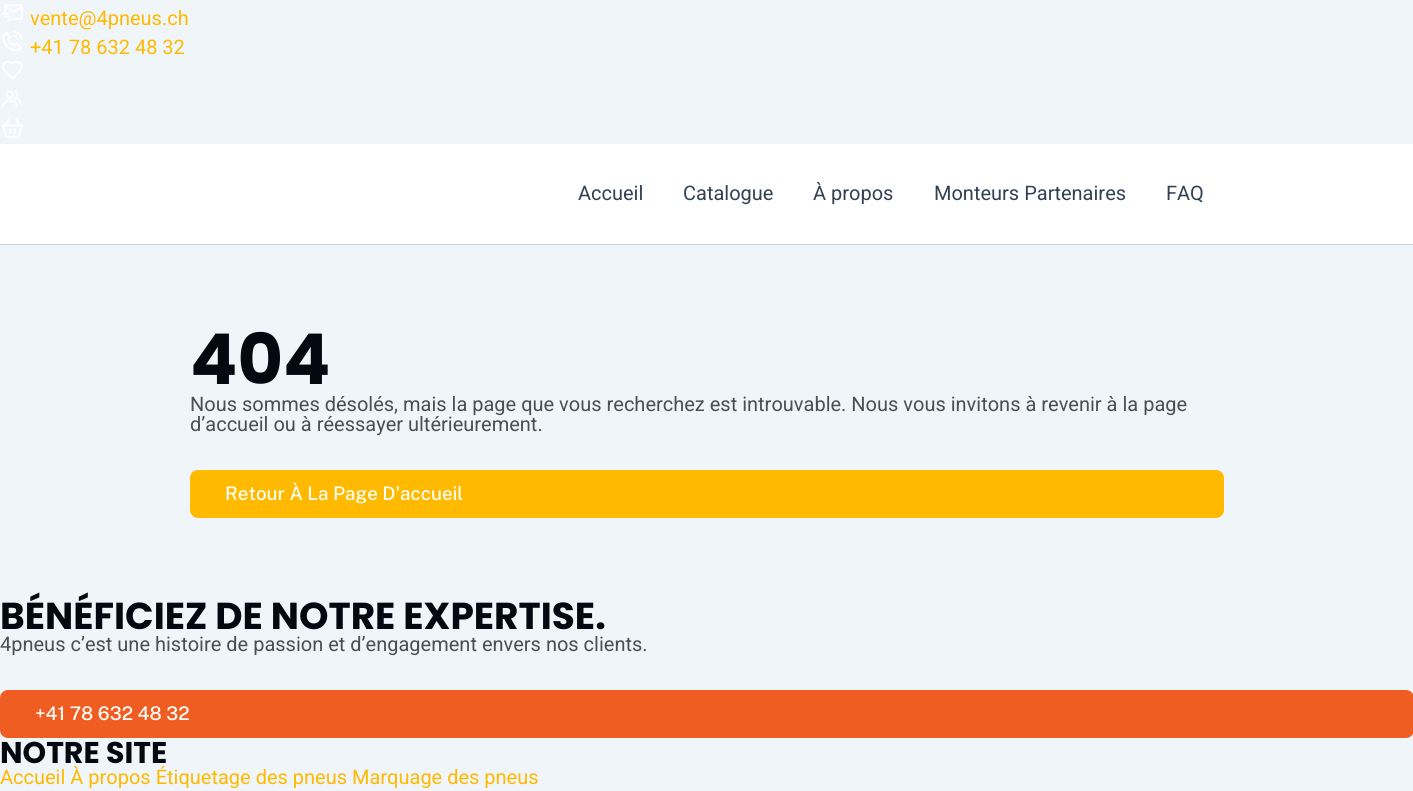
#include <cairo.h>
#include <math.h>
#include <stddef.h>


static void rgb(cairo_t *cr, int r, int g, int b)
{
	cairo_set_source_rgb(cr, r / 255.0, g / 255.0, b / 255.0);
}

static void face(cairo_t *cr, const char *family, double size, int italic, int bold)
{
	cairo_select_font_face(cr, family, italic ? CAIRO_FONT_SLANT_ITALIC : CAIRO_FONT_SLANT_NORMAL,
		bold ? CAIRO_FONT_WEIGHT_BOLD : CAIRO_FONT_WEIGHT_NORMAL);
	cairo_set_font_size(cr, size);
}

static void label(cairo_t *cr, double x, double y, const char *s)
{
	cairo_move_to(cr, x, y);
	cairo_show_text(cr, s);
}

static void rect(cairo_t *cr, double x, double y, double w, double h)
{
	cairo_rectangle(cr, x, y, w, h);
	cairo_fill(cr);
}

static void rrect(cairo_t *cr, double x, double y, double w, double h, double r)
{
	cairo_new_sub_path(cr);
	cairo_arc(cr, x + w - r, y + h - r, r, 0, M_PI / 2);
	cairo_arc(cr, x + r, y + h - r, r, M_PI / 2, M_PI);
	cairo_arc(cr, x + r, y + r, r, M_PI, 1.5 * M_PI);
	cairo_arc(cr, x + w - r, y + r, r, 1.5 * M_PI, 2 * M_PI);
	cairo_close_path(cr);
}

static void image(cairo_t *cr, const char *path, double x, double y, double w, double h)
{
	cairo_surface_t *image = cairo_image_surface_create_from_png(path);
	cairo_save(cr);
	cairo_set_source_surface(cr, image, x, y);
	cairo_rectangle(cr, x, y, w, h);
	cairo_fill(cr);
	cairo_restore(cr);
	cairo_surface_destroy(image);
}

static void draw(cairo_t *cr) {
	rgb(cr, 240, 245, 250);
	cairo_paint(cr);
	image(cr, "image0.png", 2, 4, 21, 17);
	face(cr, "Roboto", 20, 0, 0);
	rgb(cr, 255, 186, 0);
	label(cr, 30, 25, "vente@4pneus.ch");
	image(cr, "image1.png", 2, 31, 21, 21);
	label(cr, 30, 54, "+41 78 632 48 32");
	image(cr, "image2.png", 2, 60, 21, 20);
	image(cr, "image3.png", 2, 90, 20, 17);
	image(cr, "image4.png", 2, 118, 21, 20);
	rgb(cr, 255, 255, 255);
	rect(cr, 0, 144, 1413, 100);
	rgb(cr, 209, 213, 219);
	rect(cr, 0, 244, 1413, 1);
	rgb(cr, 51, 65, 85);
	label(cr, 578, 200, "Accueil");
	label(cr, 683, 200, "Catalogue");
	label(cr, 813, 200, "À propos");
	label(cr, 934, 200, "Monteurs Partenaires");
	label(cr, 1166, 200, "FAQ");
	face(cr, "Poppins", 70, 0, 1);
	rgb(cr, 4, 8, 17);
	label(cr, 190, 384, "404");
	face(cr, "Roboto", 20, 0, 0);
	rgb(cr, 74, 79, 87);
	label(cr, 190, 411, "Nous sommes désolés, mais la page que vous recherchez est introuvable. Nous vous invitons à revenir à la page");
	label(cr, 190, 431, "d’accueil ou à réessayer ultérieurement.");
	rgb(cr, 255, 186, 0);
	rrect(cr, 190, 470, 1034, 48, 8);
	cairo_fill(cr);
	face(cr, "Public Sans Medium", 18.75, 0, 0);
	rgb(cr, 255, 254, 250);
	label(cr, 225, 500, "Retour À La Page D'accueil");
	face(cr, "Poppins", 37.5, 0, 1);
	rgb(cr, 4, 8, 17);
	label(cr, 0, 629, "BÉNÉFICIEZ DE NOTRE EXPERTISE.");
	face(cr, "Roboto", 20, 0, 0);
	rgb(cr, 74, 79, 87);
	label(cr, 0, 651, "4pneus c’est une histoire de passion et d’engagement envers nos clients.");
	rgb(cr, 240, 93, 35);
	rrect(cr, 0, 690, 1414, 48, 8);
	cairo_fill(cr);
	face(cr, "Public Sans Medium", 18.75, 0, 0);
	rgb(cr, 255, 254, 250);
	label(cr, 35, 720, "+41 78 632 48 32");
	face(cr, "Poppins", 30, 0, 1);
	rgb(cr, 4, 8, 17);
	label(cr, 0, 763, "NOTRE SITE");
	face(cr, "Roboto", 20, 0, 0);
	rgb(cr, 255, 186, 0);
	label(cr, 0, 784, "Accueil À propos Étiquetage des pneus Marquage des pneus");
}

int main(void) {
	cairo_surface_t *surface = cairo_image_surface_create(CAIRO_FORMAT_RGB24, 1413, 791);
	cairo_t *cr = cairo_create(surface);
	cairo_font_options_t *options = cairo_font_options_create();
	cairo_font_options_set_hint_metrics(options, CAIRO_HINT_METRICS_OFF);
	cairo_font_options_set_hint_style(options, CAIRO_HINT_STYLE_NONE);
	cairo_set_font_options(cr, options);
	cairo_set_miter_limit(cr, 4);
	draw(cr);
	cairo_surface_write_to_png(surface, "render.png");
	cairo_font_options_destroy(options);
	cairo_destroy(cr);
	cairo_surface_destroy(surface);
	return 0;
}
